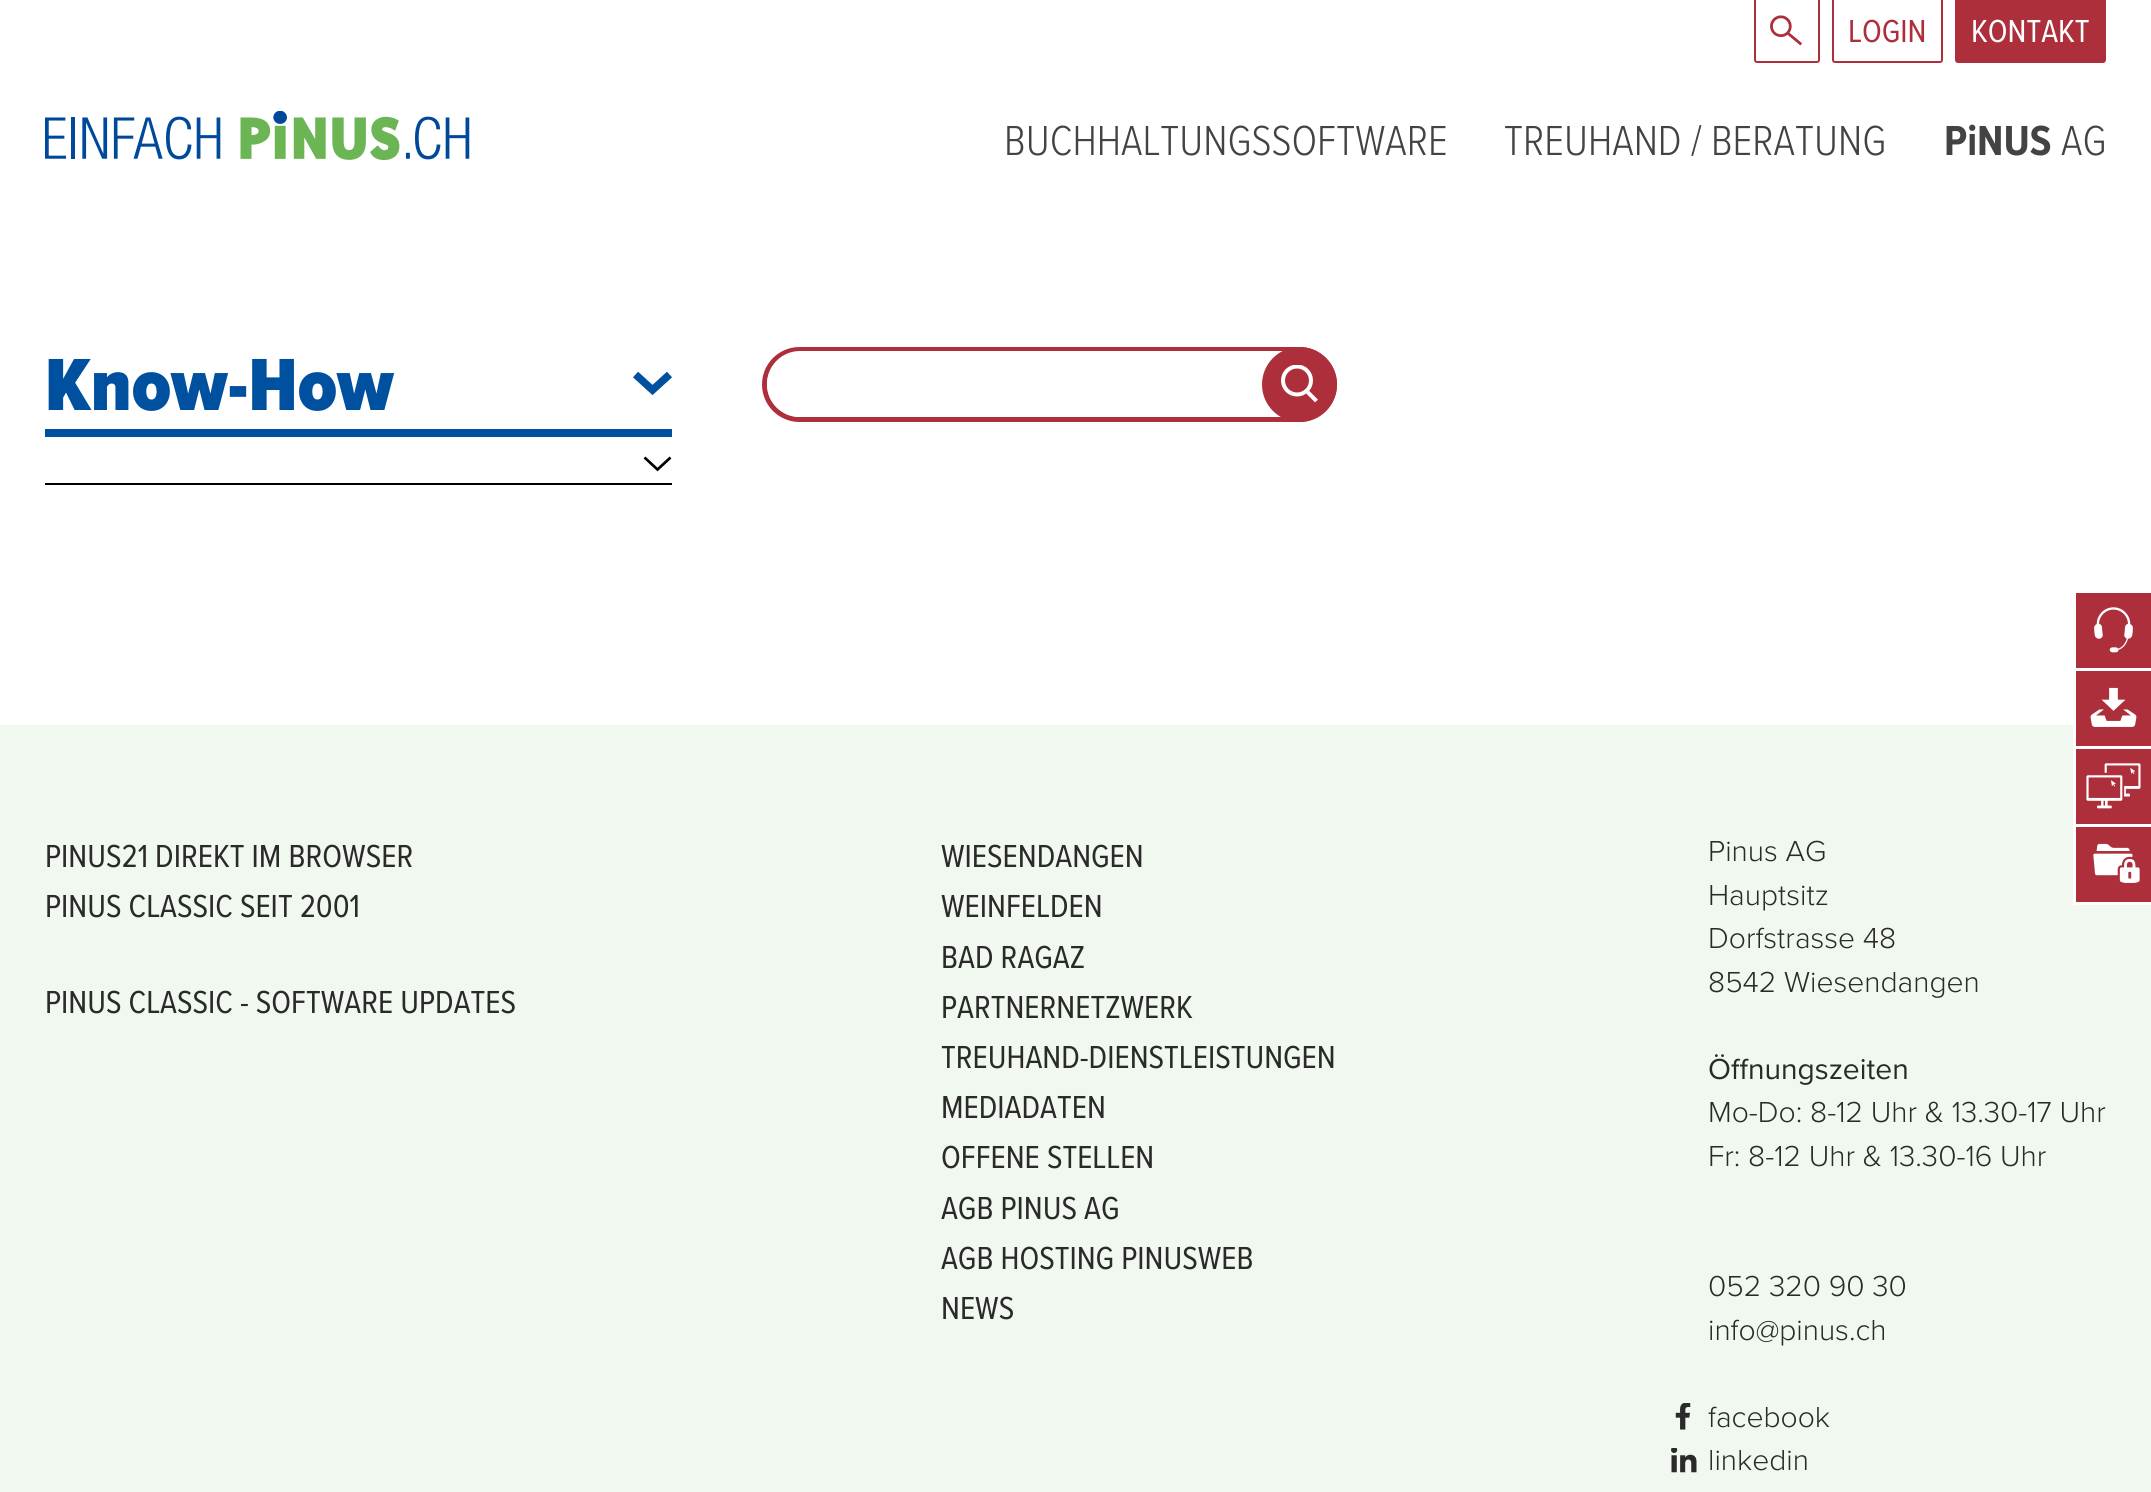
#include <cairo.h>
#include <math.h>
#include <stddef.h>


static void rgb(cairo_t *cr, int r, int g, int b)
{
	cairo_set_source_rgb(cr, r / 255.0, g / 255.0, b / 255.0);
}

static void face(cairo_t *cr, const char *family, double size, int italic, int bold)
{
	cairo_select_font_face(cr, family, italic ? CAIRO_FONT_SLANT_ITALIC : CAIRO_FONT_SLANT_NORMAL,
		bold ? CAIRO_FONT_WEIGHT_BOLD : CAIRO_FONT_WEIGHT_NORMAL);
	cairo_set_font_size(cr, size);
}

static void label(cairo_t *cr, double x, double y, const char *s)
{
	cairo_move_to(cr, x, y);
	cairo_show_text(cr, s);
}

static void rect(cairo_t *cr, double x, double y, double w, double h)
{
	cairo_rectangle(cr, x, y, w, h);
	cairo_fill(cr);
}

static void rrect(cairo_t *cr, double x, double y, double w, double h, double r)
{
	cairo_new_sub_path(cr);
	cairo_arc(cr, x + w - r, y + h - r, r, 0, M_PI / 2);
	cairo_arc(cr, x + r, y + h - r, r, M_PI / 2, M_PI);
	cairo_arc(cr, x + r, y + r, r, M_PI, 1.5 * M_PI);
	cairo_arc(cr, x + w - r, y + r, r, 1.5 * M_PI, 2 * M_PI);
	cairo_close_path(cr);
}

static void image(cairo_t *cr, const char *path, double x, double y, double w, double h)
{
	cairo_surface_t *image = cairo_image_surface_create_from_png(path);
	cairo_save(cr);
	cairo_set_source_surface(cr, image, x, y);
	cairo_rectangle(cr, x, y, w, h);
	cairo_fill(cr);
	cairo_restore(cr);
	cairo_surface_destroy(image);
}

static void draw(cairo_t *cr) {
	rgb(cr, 255, 255, 255);
	cairo_paint(cr);
	rrect(cr, 1755, -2, 64, 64, 2);
	rgb(cr, 174, 47, 60);
	cairo_stroke(cr);
	image(cr, "image0.png", 1770, 15, 32, 31);
	rrect(cr, 1833, -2, 109, 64, 2);
	cairo_stroke(cr);
	face(cr, "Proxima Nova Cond", 33, 0, 0);
	label(cr, 1848, 42, "LOGIN");
	rrect(cr, 1955, -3, 151, 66, 3);
	cairo_fill(cr);
	rgb(cr, 255, 255, 255);
	label(cr, 1971, 42, "KONTAKT");
	image(cr, "image1.png", 45, 111, 425, 50);
	face(cr, "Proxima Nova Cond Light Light", 43.5, 0, 0);
	rgb(cr, 67, 67, 67);
	label(cr, 1004, 155, "BUCHHALTUNGSSOFTWARE");
	label(cr, 1504, 155, "TREUHAND / BERATUNG");
	face(cr, "Proxima Nova Cond", 43.5, 0, 1);
	label(cr, 1944, 155, "PiNUS");
	face(cr, "Proxima Nova Cond Light Light", 43.5, 0, 0);
	label(cr, 2061, 155, "AG");
	rgb(cr, 0, 80, 160);
	rect(cr, 45, 429, 627, 8);
	face(cr, "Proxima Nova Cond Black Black", 76.5, 0, 0);
	label(cr, 45, 410, "Know-How");
	cairo_new_path(cr);
	cairo_move_to(cr, 669.5, 374.5);
	cairo_line_to(cr, 652.5, 390);
	cairo_line_to(cr, 635.5, 374.5);
	cairo_set_line_width(cr, 7.6);
	cairo_stroke(cr);
	rrect(cr, 764.5, 349.5, 570, 70, 35);
	rgb(cr, 174, 47, 60);
	cairo_set_line_width(cr, 5);
	cairo_stroke(cr);
	rgb(cr, 255, 255, 255);
	rrect(cr, 767, 351, 565, 66, 33);
	cairo_fill(cr);
	rgb(cr, 174, 47, 60);
	cairo_arc(cr, 1299.5, 384.5, 37.5, 0, 2 * M_PI);
	cairo_fill(cr);
	cairo_save(cr);
	cairo_rectangle(cr, 1281, 365, 38, 39);
	cairo_clip(cr);
	cairo_arc(cr, 1297, 380.5, 14, 0, 2 * M_PI);
	rgb(cr, 255, 255, 255);
	cairo_set_line_width(cr, 4);
	cairo_stroke(cr);
	cairo_restore(cr);
	cairo_new_path(cr);
	cairo_move_to(cr, 1307.5, 392);
	cairo_line_to(cr, 1316.5, 401);
	rgb(cr, 255, 255, 255);
	cairo_set_line_width(cr, 4);
	cairo_stroke(cr);
	rgb(cr, 0, 0, 0);
	rect(cr, 45, 483, 627, 2);
	cairo_new_path(cr);
	cairo_move_to(cr, 670.5, 457.5);
	cairo_line_to(cr, 657.5, 469.5);
	cairo_line_to(cr, 644.5, 457.5);
	cairo_set_line_width(cr, 2.7);
	cairo_stroke(cr);
	rgb(cr, 241, 248, 239);
	rect(cr, 0, 725, 2151, 767);
	face(cr, "Proxima Nova Cond", 33, 0, 0);
	rgb(cr, 42, 42, 42);
	label(cr, 45, 867, "PINUS21 DIREKT IM BROWSER");
	label(cr, 45, 917, "PINUS CLASSIC SEIT 2001");
	label(cr, 45, 1013, "PINUS CLASSIC - SOFTWARE UPDATES");
	label(cr, 941, 867, "WIESENDANGEN");
	label(cr, 941, 917, "WEINFELDEN");
	label(cr, 941, 968, "BAD RAGAZ");
	label(cr, 941, 1018, "PARTNERNETZWERK");
	label(cr, 941, 1068, "TREUHAND-DIENSTLEISTUNGEN");
	label(cr, 941, 1118, "MEDIADATEN");
	label(cr, 941, 1168, "OFFENE STELLEN");
	label(cr, 941, 1219, "AGB PINUS AG");
	label(cr, 941, 1269, "AGB HOSTING PINUSWEB");
	label(cr, 941, 1319, "NEWS");
	face(cr, "Proxima Nova Light", 30, 0, 0);
	label(cr, 1708, 861, "Pinus AG");
	label(cr, 1708, 905, "Hauptsitz");
	label(cr, 1708, 948, "Dorfstrasse 48");
	label(cr, 1708, 992, "8542 Wiesendangen");
	face(cr, "Proxima Nova", 30, 0, 0);
	label(cr, 1708, 1079, "Öffnungszeiten");
	face(cr, "Proxima Nova Light", 30, 0, 0);
	label(cr, 1708, 1122, "Mo-Do: 8-12 Uhr & 13.30-17 Uhr");
	label(cr, 1708, 1166, "Fr: 8-12 Uhr & 13.30-16 Uhr");
	label(cr, 1708, 1296, "052 320 90 30");
	label(cr, 1708, 1340, "info@pinus.ch");
	image(cr, "image2.png", 1675, 1403, 16, 27);
	label(cr, 1708, 1427, "facebook");
	image(cr, "image3.png", 1671, 1448, 26, 25);
	label(cr, 1708, 1470, "linkedin");
	rgb(cr, 174, 47, 60);
	rect(cr, 2076, 593, 75, 75);
	image(cr, "image4.png", 2094, 607, 39, 46);
	cairo_rectangle(cr, 2074.5, 669.5, 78, 78);
	rgb(cr, 255, 255, 255);
	cairo_set_line_width(cr, 3);
	cairo_stroke(cr);
	rgb(cr, 174, 47, 60);
	rect(cr, 2076, 671, 75, 75);
	image(cr, "image5.png", 2090, 687, 47, 40);
	cairo_rectangle(cr, 2074.5, 747.5, 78, 78);
	rgb(cr, 255, 255, 255);
	cairo_stroke(cr);
	rgb(cr, 174, 47, 60);
	rect(cr, 2076, 749, 75, 75);
	image(cr, "image6.png", 2086, 763, 55, 46);
	cairo_rectangle(cr, 2074.5, 825.5, 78, 78);
	rgb(cr, 255, 255, 255);
	cairo_stroke(cr);
	rgb(cr, 174, 47, 60);
	rect(cr, 2076, 827, 75, 75);
	image(cr, "image7.png", 2093, 843, 47, 40);
}

int main(void) {
	cairo_surface_t *surface = cairo_image_surface_create(CAIRO_FORMAT_RGB24, 2151, 1492);
	cairo_t *cr = cairo_create(surface);
	cairo_font_options_t *options = cairo_font_options_create();
	cairo_font_options_set_hint_metrics(options, CAIRO_HINT_METRICS_OFF);
	cairo_font_options_set_hint_style(options, CAIRO_HINT_STYLE_NONE);
	cairo_set_font_options(cr, options);
	cairo_set_miter_limit(cr, 4);
	draw(cr);
	cairo_surface_write_to_png(surface, "render.png");
	cairo_font_options_destroy(options);
	cairo_destroy(cr);
	cairo_surface_destroy(surface);
	return 0;
}
